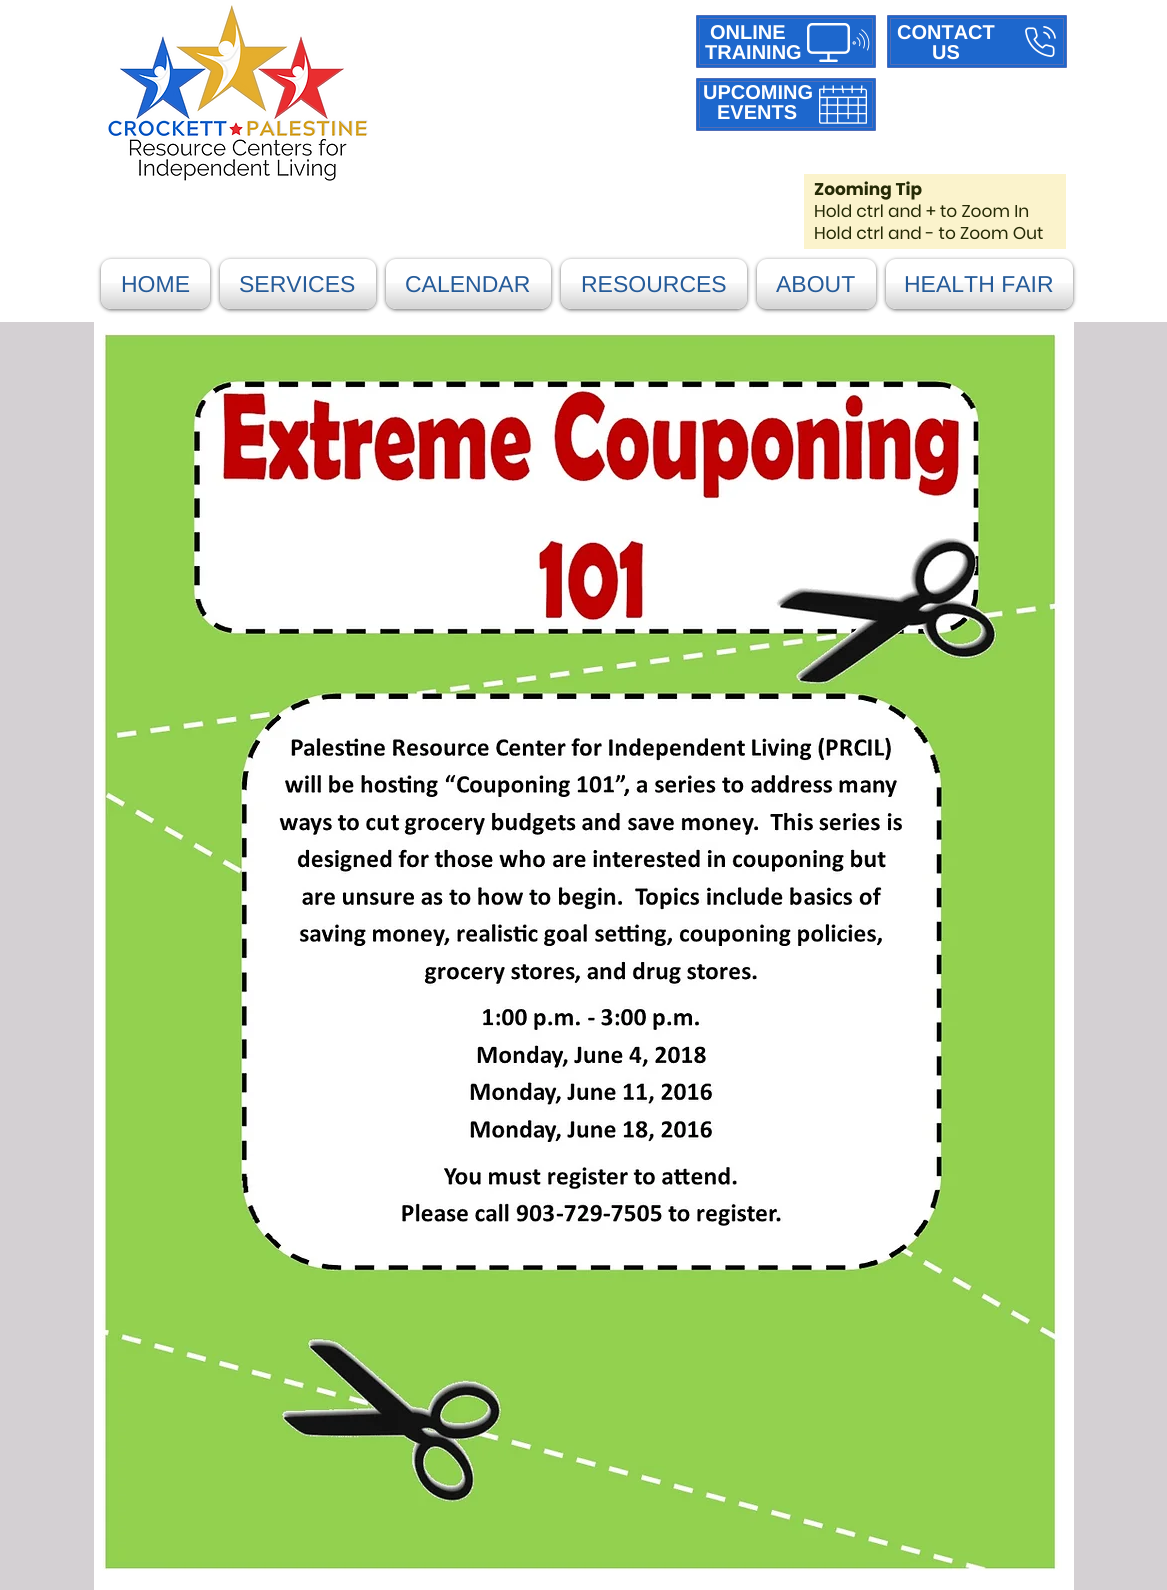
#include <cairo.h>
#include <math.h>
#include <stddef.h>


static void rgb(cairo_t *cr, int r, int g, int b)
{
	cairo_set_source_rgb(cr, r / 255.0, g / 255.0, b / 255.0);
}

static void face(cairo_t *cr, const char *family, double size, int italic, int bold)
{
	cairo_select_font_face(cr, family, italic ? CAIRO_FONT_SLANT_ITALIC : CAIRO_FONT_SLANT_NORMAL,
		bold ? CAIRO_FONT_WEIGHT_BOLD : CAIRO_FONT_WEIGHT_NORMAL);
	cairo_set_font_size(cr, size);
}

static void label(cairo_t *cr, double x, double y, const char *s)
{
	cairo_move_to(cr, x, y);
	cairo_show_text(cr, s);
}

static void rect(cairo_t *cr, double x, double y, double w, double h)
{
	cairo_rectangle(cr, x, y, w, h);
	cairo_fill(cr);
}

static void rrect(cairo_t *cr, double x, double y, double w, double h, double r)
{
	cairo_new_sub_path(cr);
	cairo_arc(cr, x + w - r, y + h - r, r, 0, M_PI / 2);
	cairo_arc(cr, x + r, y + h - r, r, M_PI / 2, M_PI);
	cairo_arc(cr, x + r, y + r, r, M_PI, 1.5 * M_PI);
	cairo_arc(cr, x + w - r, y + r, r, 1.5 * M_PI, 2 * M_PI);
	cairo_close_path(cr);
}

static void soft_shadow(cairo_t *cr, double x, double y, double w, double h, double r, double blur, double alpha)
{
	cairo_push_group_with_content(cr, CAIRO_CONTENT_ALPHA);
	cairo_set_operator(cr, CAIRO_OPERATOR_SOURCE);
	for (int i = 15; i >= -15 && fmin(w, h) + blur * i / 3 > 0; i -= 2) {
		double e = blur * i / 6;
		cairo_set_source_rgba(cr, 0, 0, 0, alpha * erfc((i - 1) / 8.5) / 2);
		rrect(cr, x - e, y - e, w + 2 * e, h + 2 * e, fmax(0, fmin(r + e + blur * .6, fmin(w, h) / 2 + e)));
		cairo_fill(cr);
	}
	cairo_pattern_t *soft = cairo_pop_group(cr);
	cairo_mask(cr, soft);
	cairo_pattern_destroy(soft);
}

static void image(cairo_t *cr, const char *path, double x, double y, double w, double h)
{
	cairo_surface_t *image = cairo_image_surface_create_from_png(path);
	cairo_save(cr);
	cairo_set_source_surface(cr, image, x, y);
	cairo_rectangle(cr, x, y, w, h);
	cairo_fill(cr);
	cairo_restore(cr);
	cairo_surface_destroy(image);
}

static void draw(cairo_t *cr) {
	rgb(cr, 212, 208, 211);
	cairo_paint(cr);
	rgb(cr, 255, 255, 255);
	rect(cr, 0, 0, 1167, 322);
	image(cr, "image0.png", 108, 5, 260, 176);
	rgb(cr, 29, 103, 205);
	rrect(cr, 696.5, 15.5, 179, 52, 0.5);
	cairo_fill_preserve(cr);
	rgb(cr, 83, 110, 183);
	cairo_set_line_width(cr, 1);
	cairo_stroke(cr);
	cairo_rectangle(cr, 699.5, 18.5, 173, 46);
	cairo_stroke(cr);
	face(cr, "Liberation Sans", 20, 0, 1);
	rgb(cr, 255, 255, 255);
	label(cr, 710, 39, "ONLINE");
	label(cr, 705, 59, "TRAINING");
	image(cr, "image1.png", 807, 23, 43, 39);
	image(cr, "image2.png", 852, 29, 18, 22);
	rgb(cr, 29, 103, 205);
	rrect(cr, 887.5, 15.5, 179, 52, 0.5);
	cairo_fill_preserve(cr);
	rgb(cr, 83, 110, 183);
	cairo_stroke(cr);
	cairo_rectangle(cr, 890.5, 18.5, 173, 46);
	cairo_stroke(cr);
	rgb(cr, 255, 255, 255);
	label(cr, 897, 39, "CONTACT");
	label(cr, 932, 59, "US");
	image(cr, "image3.png", 1025, 26, 31, 31);
	rgb(cr, 29, 103, 205);
	rrect(cr, 696.5, 78.5, 179, 52, 0.5);
	cairo_fill_preserve(cr);
	rgb(cr, 83, 110, 183);
	cairo_stroke(cr);
	cairo_rectangle(cr, 699.5, 81.5, 173, 46);
	cairo_stroke(cr);
	rgb(cr, 255, 255, 255);
	label(cr, 703, 99, "UPCOMING");
	label(cr, 717, 119, "EVENTS");
	image(cr, "image4.png", 819, 85, 48, 39);
	rgb(cr, 251, 243, 204);
	rect(cr, 804, 174, 262, 75);
	face(cr, "Poppins", 17, 0, 1);
	rgb(cr, 37, 42, 4);
	label(cr, 814, 195, "Zooming Tip");
	face(cr, "Poppins", 17, 0, 0);
	label(cr, 814, 217, "Hold ctrl and + to Zoom In");
	label(cr, 814, 239, "Hold ctrl and - to Zoom Out");
	rgb(cr, 0, 0, 0);
	soft_shadow(cr, 101, 260, 109, 50, 10, 2, 0.6);
	rgb(cr, 255, 255, 255);
	rrect(cr, 101, 259, 109, 50, 10);
	cairo_fill(cr);
	image(cr, "image5.png", 101, 283, 109, 26);
	face(cr, "Liberation Sans", 23, 0, 0);
	rgb(cr, 37, 91, 153);
	label(cr, 121, 292, "HOME");
	rgb(cr, 0, 0, 0);
	soft_shadow(cr, 220, 260, 156, 50, 10, 2, 0.6);
	rgb(cr, 255, 255, 255);
	rrect(cr, 220, 259, 156, 50, 10);
	cairo_fill(cr);
	image(cr, "image6.png", 220, 283, 156, 26);
	rgb(cr, 37, 91, 153);
	label(cr, 239, 292, "SERVICES");
	rgb(cr, 0, 0, 0);
	soft_shadow(cr, 386, 260, 165, 50, 10, 2, 0.6);
	rgb(cr, 255, 255, 255);
	rrect(cr, 386, 259, 165, 50, 10);
	cairo_fill(cr);
	image(cr, "image7.png", 386, 283, 165, 26);
	rgb(cr, 37, 91, 153);
	label(cr, 405, 292, "CALENDAR");
	rgb(cr, 0, 0, 0);
	soft_shadow(cr, 561, 260, 186, 50, 10, 2, 0.6);
	rgb(cr, 255, 255, 255);
	rrect(cr, 561, 259, 186, 50, 10);
	cairo_fill(cr);
	image(cr, "image8.png", 561, 283, 186, 26);
	rgb(cr, 37, 91, 153);
	label(cr, 581, 292, "RESOURCES");
	rgb(cr, 0, 0, 0);
	soft_shadow(cr, 757, 260, 119, 50, 10, 2, 0.6);
	rgb(cr, 255, 255, 255);
	rrect(cr, 757, 259, 119, 50, 10);
	cairo_fill(cr);
	image(cr, "image9.png", 757, 283, 119, 26);
	rgb(cr, 37, 91, 153);
	label(cr, 776, 292, "ABOUT");
	rgb(cr, 0, 0, 0);
	soft_shadow(cr, 886, 260, 187, 50, 10, 2, 0.6);
	rgb(cr, 255, 255, 255);
	rrect(cr, 886, 259, 187, 50, 10);
	cairo_fill(cr);
	image(cr, "image10.png", 886, 283, 187, 26);
	rgb(cr, 37, 91, 153);
	label(cr, 904, 292, "HEALTH FAIR");
	rgb(cr, 255, 255, 255);
	rect(cr, 94, 322, 980, 1268);
	image(cr, "image11.png", 102, 332, 960, 1239);
}

int main(void) {
	cairo_surface_t *surface = cairo_image_surface_create(CAIRO_FORMAT_RGB24, 1167, 1590);
	cairo_t *cr = cairo_create(surface);
	cairo_font_options_t *options = cairo_font_options_create();
	cairo_font_options_set_hint_metrics(options, CAIRO_HINT_METRICS_OFF);
	cairo_font_options_set_hint_style(options, CAIRO_HINT_STYLE_NONE);
	cairo_set_font_options(cr, options);
	cairo_set_miter_limit(cr, 4);
	draw(cr);
	cairo_surface_write_to_png(surface, "render.png");
	cairo_font_options_destroy(options);
	cairo_destroy(cr);
	cairo_surface_destroy(surface);
	return 0;
}
